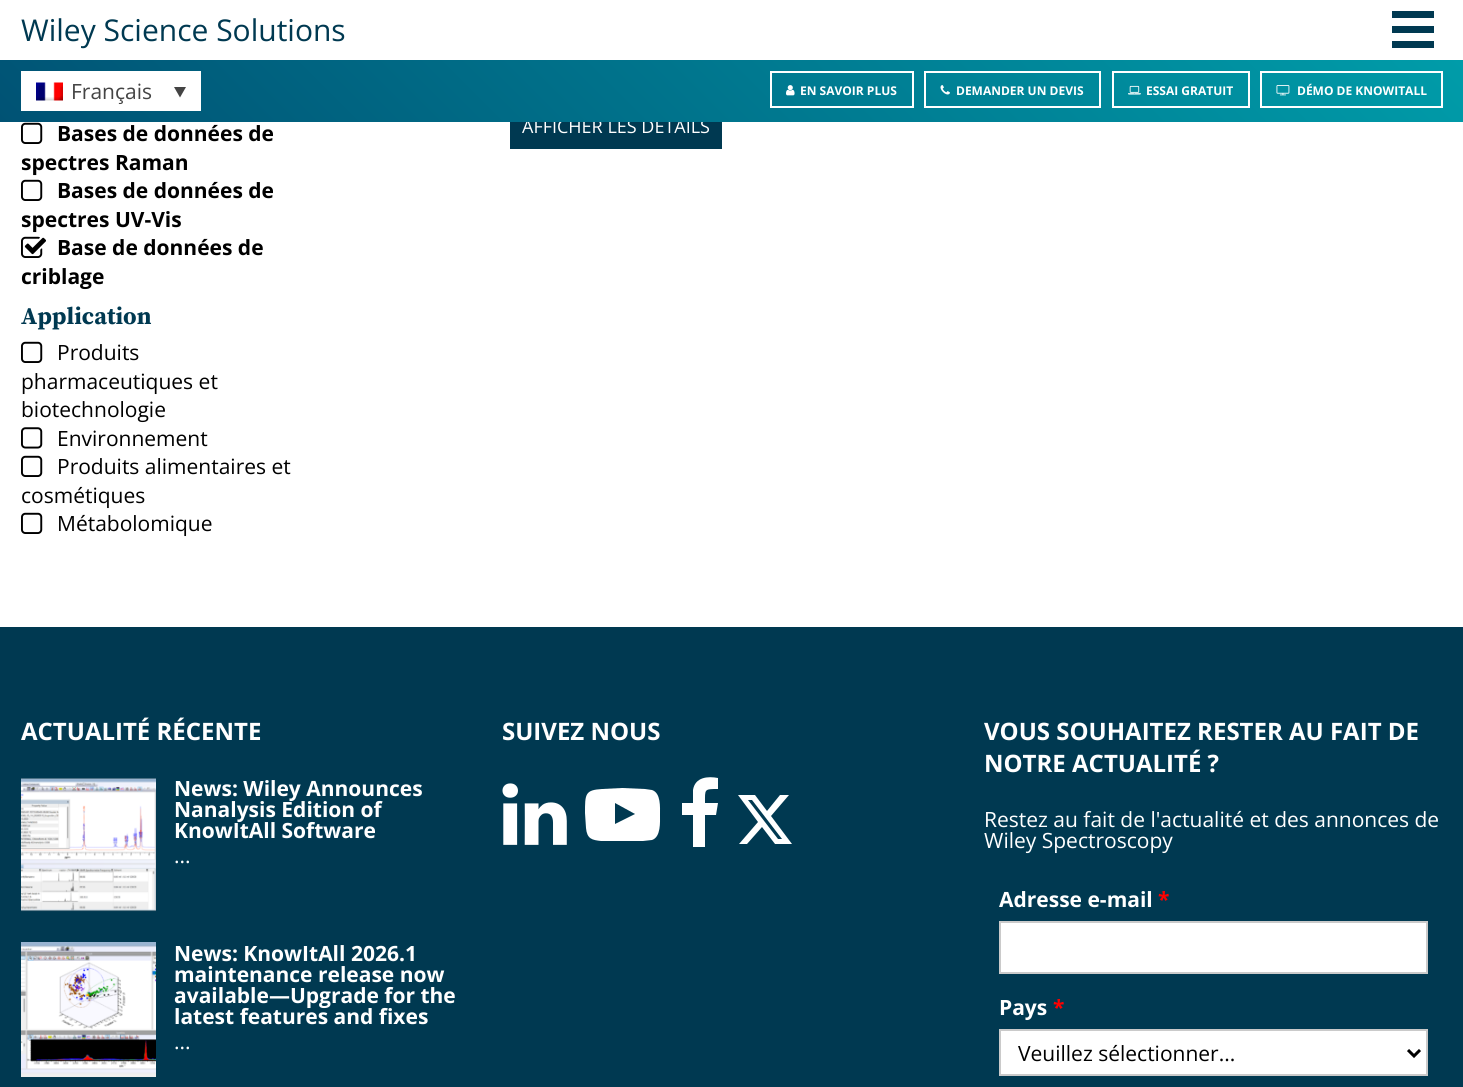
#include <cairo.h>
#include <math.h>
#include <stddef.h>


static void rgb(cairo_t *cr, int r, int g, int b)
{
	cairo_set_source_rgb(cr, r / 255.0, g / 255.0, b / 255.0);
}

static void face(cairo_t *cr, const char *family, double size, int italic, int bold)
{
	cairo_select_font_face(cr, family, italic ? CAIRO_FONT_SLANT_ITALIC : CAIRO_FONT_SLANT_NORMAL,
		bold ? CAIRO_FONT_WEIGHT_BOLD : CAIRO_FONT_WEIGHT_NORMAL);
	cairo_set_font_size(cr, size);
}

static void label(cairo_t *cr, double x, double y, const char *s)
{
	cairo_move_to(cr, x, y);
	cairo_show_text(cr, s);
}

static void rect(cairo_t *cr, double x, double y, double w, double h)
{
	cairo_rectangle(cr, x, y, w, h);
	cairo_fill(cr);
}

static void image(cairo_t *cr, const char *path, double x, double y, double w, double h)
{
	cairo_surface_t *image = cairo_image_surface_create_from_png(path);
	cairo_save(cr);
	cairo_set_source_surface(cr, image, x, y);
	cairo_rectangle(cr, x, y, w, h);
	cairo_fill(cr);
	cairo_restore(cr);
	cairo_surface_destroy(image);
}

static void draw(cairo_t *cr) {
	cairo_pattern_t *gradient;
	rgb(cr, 255, 255, 255);
	cairo_paint(cr);
	face(cr, "Open Sans", 30, 0, 0);
	rgb(cr, 0, 57, 81);
	label(cr, 21, 41, "Wiley Science Solutions");
	rect(cr, 1392, 26, 42, 7);
	rect(cr, 1392, 11, 42, 7);
	rect(cr, 1392, 41, 42, 7);
	rect(cr, 510, 122, 212, 27);
	face(cr, "Open Sans", 18, 0, 0);
	rgb(cr, 255, 255, 255);
	label(cr, 522, 133, "AFFICHER LES DÉTAILS");
	gradient = cairo_pattern_create_linear(351, 472, 1113, -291);
	cairo_pattern_add_color_stop_rgba(gradient, 0, 0, 0.322, 0.455, 1);
	cairo_pattern_add_color_stop_rgba(gradient, 1, 0, 0.612, 0.663, 1);
	cairo_set_source(cr, gradient);
	cairo_pattern_destroy(gradient);
	rect(cr, 0, 60, 1463, 62);
	rgb(cr, 255, 255, 255);
	rect(cr, 21, 71, 180, 40);
	image(cr, "image0.png", 36, 82, 27, 19);
	face(cr, "Open Sans", 21, 0, 0);
	rgb(cr, 68, 68, 68);
	label(cr, 71, 99, "Français");
	cairo_new_path(cr);
	cairo_move_to(cr, 174, 87);
	cairo_line_to(cr, 186, 87);
	cairo_line_to(cr, 180, 97.5);
	cairo_close_path(cr);
	cairo_fill(cr);
	cairo_rectangle(cr, 771, 72, 142, 35);
	rgb(cr, 255, 255, 255);
	cairo_stroke(cr);
	image(cr, "image1.png", 786, 85, 9, 11);
	face(cr, "Open Sans", 12, 0, 1);
	label(cr, 800, 95, "EN SAVOIR PLUS");
	cairo_rectangle(cr, 925, 72, 175, 35);
	cairo_stroke(cr);
	image(cr, "image2.png", 940, 85, 10, 10);
	label(cr, 956, 95, "DEMANDER UN DEVIS");
	cairo_rectangle(cr, 1113, 72, 136, 35);
	cairo_stroke(cr);
	image(cr, "image3.png", 1128, 85, 13, 10);
	label(cr, 1146, 95, "ESSAI GRATUIT");
	cairo_rectangle(cr, 1261, 72, 181, 35);
	cairo_stroke(cr);
	image(cr, "image4.png", 1276, 85, 14, 11);
	label(cr, 1297, 95, "DÉMO DE KNOWITALL");
	image(cr, "image5.png", 21, 122, 22, 22);
	face(cr, "Open Sans", 21, 0, 1);
	rgb(cr, 0, 0, 0);
	label(cr, 57, 141, "Bases de données de");
	label(cr, 21, 170, "spectres Raman");
	image(cr, "image5.png", 21, 179, 22, 22);
	label(cr, 57, 198, "Bases de données de");
	label(cr, 21, 227, "spectres UV-Vis");
	image(cr, "image6.png", 21, 236, 25, 22);
	label(cr, 57, 255, "Base de données de");
	label(cr, 21, 284, "criblage");
	face(cr, "Source Serif Pro", 24, 0, 1);
	rgb(cr, 0, 57, 81);
	label(cr, 21, 324, "Application");
	image(cr, "image5.png", 21, 341, 22, 22);
	face(cr, "Open Sans", 21, 0, 0);
	rgb(cr, 0, 0, 0);
	label(cr, 57, 360, "Produits");
	label(cr, 21, 389, "pharmaceutiques et");
	label(cr, 21, 417, "biotechnologie");
	image(cr, "image7.png", 21, 427, 22, 22);
	label(cr, 57, 446, "Environnement");
	image(cr, "image5.png", 21, 455, 22, 22);
	label(cr, 57, 474, "Produits alimentaires et");
	label(cr, 21, 503, "cosmétiques");
	image(cr, "image5.png", 21, 512, 22, 22);
	label(cr, 57, 531, "Métabolomique");
	rgb(cr, 0, 57, 81);
	rect(cr, 0, 627, 1463, 460);
	face(cr, "Open Sans", 24, 0, 1);
	rgb(cr, 255, 255, 255);
	label(cr, 21, 740, "ACTUALITÉ RÉCENTE");
	image(cr, "image8.png", 21, 778, 135, 134);
	face(cr, "Open Sans", 21, 0, 1);
	label(cr, 174, 796, "News: Wiley Announces");
	label(cr, 174, 817, "Nanalysis Edition of");
	label(cr, 174, 838, "KnowItAll Software");
	face(cr, "Open Sans", 21, 0, 0);
	label(cr, 174, 863, "...");
	image(cr, "image9.png", 21, 942, 135, 135);
	face(cr, "Open Sans", 21, 0, 1);
	label(cr, 174, 961, "News: KnowItAll 2026.1");
	label(cr, 174, 982, "maintenance release now");
	label(cr, 174, 1003, "available—Upgrade for the");
	label(cr, 174, 1024, "latest features and fixes");
	face(cr, "Open Sans", 21, 0, 0);
	label(cr, 174, 1049, "...");
	face(cr, "Open Sans", 24, 0, 1);
	label(cr, 502, 740, "SUIVEZ NOUS");
	image(cr, "image10.png", 502, 783, 65, 62);
	cairo_new_path(cr);
	cairo_move_to(cr, 615, 824);
	cairo_line_to(cr, 635, 814);
	cairo_line_to(cr, 615, 803);
	cairo_close_path(cr);
	cairo_move_to(cr, 622, 788);
	cairo_line_to(cr, 645, 789);
	cairo_line_to(cr, 652, 790);
	cairo_curve_to(cr, 661, 793, 660, 807, 660, 815);
	cairo_curve_to(cr, 660, 822, 661, 837, 652, 840);
	cairo_line_to(cr, 643, 841);
	cairo_line_to(cr, 622, 841);
	cairo_line_to(cr, 601, 841);
	cairo_curve_to(cr, 592, 840, 587, 839, 586, 828);
	cairo_line_to(cr, 585, 813);
	cairo_curve_to(cr, 585, 794, 585, 790, 602, 789);
	cairo_close_path(cr);
	cairo_fill(cr);
	cairo_new_path(cr);
	cairo_move_to(cr, 718, 778);
	cairo_line_to(cr, 718, 789);
	cairo_curve_to(cr, 704, 789, 705, 789, 705, 803);
	cairo_line_to(cr, 718, 803);
	cairo_line_to(cr, 716, 815);
	cairo_line_to(cr, 705, 815);
	cairo_line_to(cr, 705, 847);
	cairo_line_to(cr, 693, 847);
	cairo_line_to(cr, 693, 815);
	cairo_line_to(cr, 682, 815);
	cairo_line_to(cr, 682, 803);
	cairo_line_to(cr, 693, 803);
	cairo_line_to(cr, 693, 790);
	cairo_curve_to(cr, 695, 777, 708, 776, 718, 778);
	cairo_close_path(cr);
	cairo_fill(cr);
	cairo_new_path(cr);
	cairo_move_to(cr, 780, 795);
	cairo_line_to(cr, 789, 795);
	cairo_line_to(cr, 771, 816);
	cairo_line_to(cr, 792, 844);
	cairo_line_to(cr, 775, 844);
	cairo_line_to(cr, 762, 827);
	cairo_line_to(cr, 747, 844);
	cairo_line_to(cr, 739, 844);
	cairo_line_to(cr, 758, 822);
	cairo_line_to(cr, 738, 795);
	cairo_line_to(cr, 755, 795);
	cairo_line_to(cr, 767, 811);
	cairo_close_path(cr);
	cairo_move_to(cr, 778, 839);
	cairo_line_to(cr, 782, 839);
	cairo_line_to(cr, 752, 800);
	cairo_line_to(cr, 748, 800);
	cairo_close_path(cr);
	cairo_fill(cr);
	label(cr, 984, 740, "VOUS SOUHAITEZ RESTER AU FAIT DE");
	label(cr, 984, 772, "NOTRE ACTUALITÉ ?");
	face(cr, "Open Sans", 21, 0, 0);
	label(cr, 984, 827, "Restez au fait de l'actualité et des annonces de");
	label(cr, 984, 848, "Wiley Spectroscopy");
	face(cr, "Open Sans", 21, 0, 1);
	label(cr, 999, 907, "Adresse e-mail");
	rgb(cr, 255, 0, 0);
	label(cr, 1158, 907, "*");
	rgb(cr, 255, 255, 255);
	cairo_rectangle(cr, 1000, 922, 427, 51);
	cairo_fill_preserve(cr);
	rgb(cr, 202, 202, 202);
	cairo_stroke(cr);
	rgb(cr, 255, 255, 255);
	label(cr, 999, 1015, "Pays");
	rgb(cr, 255, 0, 0);
	label(cr, 1053, 1015, "*");
	rgb(cr, 255, 255, 255);
	cairo_rectangle(cr, 1000, 1030, 427, 45);
	cairo_fill_preserve(cr);
	rgb(cr, 202, 202, 202);
	cairo_stroke(cr);
	cairo_new_path(cr);
	cairo_move_to(cr, 1408, 1050);
	cairo_line_to(cr, 1414, 1056);
	cairo_line_to(cr, 1420, 1050);
	rgb(cr, 0, 0, 0);
	cairo_set_line_width(cr, 3);
	cairo_stroke(cr);
	face(cr, "Open Sans", 21, 0, 0);
	label(cr, 1018, 1061, "Veuillez sélectionner...");
}

int main(void) {
	cairo_surface_t *surface = cairo_image_surface_create(CAIRO_FORMAT_RGB24, 1463, 1087);
	cairo_t *cr = cairo_create(surface);
	cairo_font_options_t *options = cairo_font_options_create();
	cairo_font_options_set_hint_metrics(options, CAIRO_HINT_METRICS_OFF);
	cairo_font_options_set_hint_style(options, CAIRO_HINT_STYLE_NONE);
	cairo_set_font_options(cr, options);
	cairo_set_miter_limit(cr, 4);
	draw(cr);
	cairo_surface_write_to_png(surface, "render.png");
	cairo_font_options_destroy(options);
	cairo_destroy(cr);
	cairo_surface_destroy(surface);
	return 0;
}
